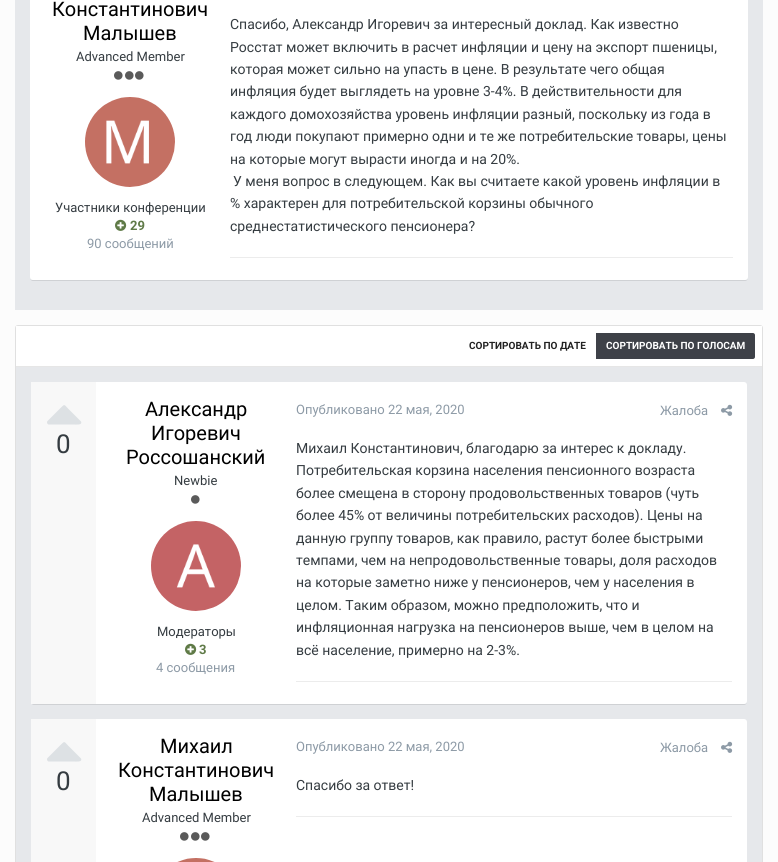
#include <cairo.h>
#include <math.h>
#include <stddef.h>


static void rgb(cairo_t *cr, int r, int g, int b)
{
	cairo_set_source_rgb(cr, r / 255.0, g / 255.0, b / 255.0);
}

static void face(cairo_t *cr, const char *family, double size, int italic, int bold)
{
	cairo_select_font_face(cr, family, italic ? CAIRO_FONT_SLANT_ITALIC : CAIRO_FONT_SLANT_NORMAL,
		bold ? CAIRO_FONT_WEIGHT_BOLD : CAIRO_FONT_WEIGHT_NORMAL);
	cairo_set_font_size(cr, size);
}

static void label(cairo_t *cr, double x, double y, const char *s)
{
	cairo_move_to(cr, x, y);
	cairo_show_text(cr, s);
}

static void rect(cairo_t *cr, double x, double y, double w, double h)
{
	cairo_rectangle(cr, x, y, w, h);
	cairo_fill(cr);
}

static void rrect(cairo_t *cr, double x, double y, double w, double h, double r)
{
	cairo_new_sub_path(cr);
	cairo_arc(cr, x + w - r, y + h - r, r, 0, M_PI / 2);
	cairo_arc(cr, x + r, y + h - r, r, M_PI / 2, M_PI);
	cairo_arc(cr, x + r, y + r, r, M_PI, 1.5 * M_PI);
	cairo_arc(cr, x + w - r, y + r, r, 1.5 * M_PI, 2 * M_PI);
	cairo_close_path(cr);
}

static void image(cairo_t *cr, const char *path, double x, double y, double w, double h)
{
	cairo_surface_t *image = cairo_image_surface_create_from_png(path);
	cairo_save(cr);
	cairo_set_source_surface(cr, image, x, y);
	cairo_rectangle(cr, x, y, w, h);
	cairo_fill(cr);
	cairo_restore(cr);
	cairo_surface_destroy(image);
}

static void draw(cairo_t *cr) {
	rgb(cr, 252, 252, 252);
	cairo_paint(cr);
	rgb(cr, 230, 232, 235);
	rect(cr, 15, 0, 748, 310);
	rgb(cr, 207, 209, 212);
	cairo_new_path(cr);
	cairo_move_to(cr, 30, 277);
	cairo_curve_to(cr, 30, 279, 31, 281, 33, 281);
	cairo_line_to(cr, 745, 281);
	cairo_curve_to(cr, 747, 281, 748, 279, 748, 277);
	cairo_curve_to(cr, 748, 279, 747, 280, 745, 280);
	cairo_line_to(cr, 33, 280);
	cairo_curve_to(cr, 31, 280, 30, 279, 30, 277);
	cairo_close_path(cr);
	cairo_fill(cr);
	rgb(cr, 255, 255, 255);
	rrect(cr, 30, -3, 718, 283, 3);
	cairo_fill(cr);
	face(cr, "Roboto", 20, 0, 0);
	rgb(cr, 0, 0, 0);
	label(cr, 52, 16, "Константинович");
	label(cr, 83, 40, "Малышев");
	face(cr, "Roboto", 13, 0, 0);
	rgb(cr, 53, 60, 65);
	label(cr, 76, 61, "Advanced Member");
	image(cr, "image0.png", 114, 71, 9, 9);
	image(cr, "image0.png", 125, 71, 9, 9);
	image(cr, "image0.png", 135, 71, 9, 9);
	image(cr, "image1.png", 85, 97, 90, 90);
	label(cr, 55, 212, "Участники конференции");
	image(cr, "image2.png", 115, 219, 12, 12);
	face(cr, "Roboto", 13, 0, 1);
	rgb(cr, 95, 122, 71);
	label(cr, 130, 230, "29");
	face(cr, "Roboto", 13, 0, 0);
	rgb(cr, 141, 154, 166);
	label(cr, 87, 248, "90 сообщений");
	face(cr, "Roboto", 14, 0, 0);
	rgb(cr, 53, 60, 65);
	label(cr, 230, 29, "Спасибо, Александр Игоревич за интересный доклад. Как известно");
	label(cr, 230, 52, "Росстат может включить в расчет инфляции и цену на экспорт пшеницы,");
	label(cr, 230, 74, "которая может сильно на упасть в цене. В результате чего общая");
	label(cr, 230, 96, "инфляция будет выглядеть на уровне 3-4%. В действительности для");
	label(cr, 230, 119, "каждого домохозяйства уровень инфляции разный, поскольку из года в");
	label(cr, 230, 141, "год люди покупают примерно одни и те же потребительские товары, цены");
	label(cr, 230, 164, "на которые могут вырасти иногда и на 20%.");
	label(cr, 233, 186, "У меня вопрос в следующем. Как вы считаете какой уровень инфляции в");
	label(cr, 230, 208, "% характерен для потребительской корзины обычного");
	label(cr, 230, 231, "среднестатистического пенсионера?");
	rgb(cr, 236, 236, 236);
	rect(cr, 230, 257, 503, 1);
	rrect(cr, 15.5, 325.5, 747, 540, 2.5);
	rgb(cr, 224, 224, 224);
	cairo_set_line_width(cr, 1);
	cairo_stroke(cr);
	rgb(cr, 255, 255, 255);
	rect(cr, 16, 326, 746, 40);
	rgb(cr, 230, 230, 230);
	rect(cr, 16, 366, 746, 1);
	face(cr, "Roboto", 10, 0, 1);
	rgb(cr, 34, 34, 34);
	label(cr, 469, 349, "СОРТИРОВАТЬ ПО ДАТЕ");
	rgb(cr, 62, 65, 72);
	cairo_new_path(cr);
	cairo_move_to(cr, 596, 333);
	cairo_line_to(cr, 753, 333);
	cairo_curve_to(cr, 754, 333, 755, 334, 755, 335);
	cairo_line_to(cr, 755, 357);
	cairo_curve_to(cr, 755, 358, 754, 359, 753, 359);
	cairo_line_to(cr, 596, 359);
	cairo_close_path(cr);
	cairo_fill(cr);
	rgb(cr, 255, 255, 255);
	label(cr, 606, 349, "СОРТИРОВАТЬ ПО ГОЛОСАМ");
	rgb(cr, 230, 232, 235);
	rect(cr, 16, 367, 746, 495);
	rgb(cr, 207, 209, 212);
	cairo_new_path(cr);
	cairo_move_to(cr, 31, 701);
	cairo_curve_to(cr, 31, 703, 32, 705, 34, 705);
	cairo_line_to(cr, 744, 705);
	cairo_curve_to(cr, 746, 705, 747, 703, 747, 701);
	cairo_curve_to(cr, 747, 703, 746, 704, 744, 704);
	cairo_line_to(cr, 34, 704);
	cairo_curve_to(cr, 32, 704, 31, 703, 31, 701);
	cairo_close_path(cr);
	cairo_fill(cr);
	rgb(cr, 255, 255, 255);
	rrect(cr, 31, 382, 716, 322, 3);
	cairo_fill(cr);
	rgb(cr, 248, 248, 248);
	rect(cr, 31, 382, 65, 322);
	rgb(cr, 221, 225, 228);
	cairo_new_path(cr);
	cairo_move_to(cr, 80.5, 421);
	cairo_line_to(cr, 81, 421.5);
	cairo_curve_to(cr, 83, 425.5, 75, 424.5, 74, 424.5);
	cairo_line_to(cr, 48.5, 424.5);
	cairo_curve_to(cr, 47, 424, 46.5, 422, 47.5, 421);
	cairo_line_to(cr, 60, 408.5);
	cairo_curve_to(cr, 64.5, 404, 64, 404, 68, 408.5);
	cairo_close_path(cr);
	cairo_fill(cr);
	face(cr, "Roboto", 26, 0, 0);
	rgb(cr, 53, 60, 65);
	label(cr, 56, 453, "0");
	face(cr, "Roboto", 20, 0, 0);
	rgb(cr, 0, 0, 0);
	label(cr, 145, 416, "Александр");
	label(cr, 151, 440, "Игоревич");
	label(cr, 126, 464, "Россошанский");
	face(cr, "Roboto", 13, 0, 0);
	rgb(cr, 53, 60, 65);
	label(cr, 174, 485, "Newbie");
	image(cr, "image0.png", 191, 495, 9, 9);
	image(cr, "image3.png", 151, 521, 90, 90);
	label(cr, 157, 636, "Модераторы");
	image(cr, "image2.png", 185, 643, 12, 12);
	face(cr, "Roboto", 13, 0, 1);
	rgb(cr, 95, 122, 71);
	label(cr, 199, 654, "3");
	face(cr, "Roboto", 13, 0, 0);
	rgb(cr, 141, 154, 166);
	label(cr, 156, 672, "4 сообщения");
	label(cr, 296, 414, "Опубликовано 22 мая, 2020");
	label(cr, 660, 415, "Жалоба");
	image(cr, "image4.png", 721, 404, 12, 12);
	face(cr, "Roboto", 14, 0, 0);
	rgb(cr, 53, 60, 65);
	label(cr, 296, 453, "Михаил Константинович, благодарю за интерес к докладу.");
	label(cr, 296, 475, "Потребительская корзина населения пенсионного возраста");
	label(cr, 296, 498, "более смещена в сторону продовольственных товаров (чуть");
	label(cr, 296, 520, "более 45% от величины потребительских расходов). Цены на");
	label(cr, 296, 543, "данную группу товаров, как правило, растут более быстрыми");
	label(cr, 296, 565, "темпами, чем на непродовольственные товары, доля расходов");
	label(cr, 296, 587, "на которые заметно ниже у пенсионеров, чем у населения в");
	label(cr, 296, 610, "целом. Таким образом, можно предположить, что и");
	label(cr, 296, 632, "инфляционная нагрузка на пенсионеров выше, чем в целом на");
	label(cr, 296, 655, "всё население, примерно на 2-3%.");
	rgb(cr, 236, 236, 236);
	rect(cr, 296, 681, 436, 1);
	rgb(cr, 255, 255, 255);
	rrect(cr, 31, 719, 716, 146, 3);
	cairo_fill(cr);
	rgb(cr, 248, 248, 248);
	rect(cr, 31, 719, 65, 143);
	rgb(cr, 221, 225, 228);
	cairo_new_path(cr);
	cairo_move_to(cr, 80.5, 758);
	cairo_line_to(cr, 81, 758.5);
	cairo_curve_to(cr, 83, 762.5, 75, 761.5, 74, 761.5);
	cairo_line_to(cr, 48.5, 761.5);
	cairo_curve_to(cr, 47, 761, 46.5, 759, 47.5, 758);
	cairo_line_to(cr, 60, 745.5);
	cairo_curve_to(cr, 64.5, 741, 64, 741, 68, 745.5);
	cairo_close_path(cr);
	cairo_fill(cr);
	face(cr, "Roboto", 26, 0, 0);
	rgb(cr, 53, 60, 65);
	label(cr, 56, 790, "0");
	face(cr, "Roboto", 20, 0, 0);
	rgb(cr, 0, 0, 0);
	label(cr, 160, 753, "Михаил");
	label(cr, 118, 777, "Константинович");
	label(cr, 149, 801, "Малышев");
	face(cr, "Roboto", 13, 0, 0);
	rgb(cr, 53, 60, 65);
	label(cr, 142, 822, "Advanced Member");
	image(cr, "image0.png", 180, 832, 9, 9);
	image(cr, "image0.png", 191, 832, 9, 9);
	image(cr, "image0.png", 201, 832, 9, 9);
	image(cr, "image5.png", 177, 858, 38, 4);
	rgb(cr, 141, 154, 166);
	label(cr, 296, 751, "Опубликовано 22 мая, 2020");
	label(cr, 660, 752, "Жалоба");
	image(cr, "image4.png", 721, 741, 12, 12);
	face(cr, "Roboto", 14, 0, 0);
	rgb(cr, 53, 60, 65);
	label(cr, 296, 790, "Спасибо за ответ!");
	rgb(cr, 236, 236, 236);
	rect(cr, 296, 816, 436, 1);
}

int main(void) {
	cairo_surface_t *surface = cairo_image_surface_create(CAIRO_FORMAT_RGB24, 778, 862);
	cairo_t *cr = cairo_create(surface);
	cairo_font_options_t *options = cairo_font_options_create();
	cairo_font_options_set_hint_metrics(options, CAIRO_HINT_METRICS_OFF);
	cairo_font_options_set_hint_style(options, CAIRO_HINT_STYLE_NONE);
	cairo_set_font_options(cr, options);
	cairo_set_miter_limit(cr, 4);
	draw(cr);
	cairo_surface_write_to_png(surface, "render.png");
	cairo_font_options_destroy(options);
	cairo_destroy(cr);
	cairo_surface_destroy(surface);
	return 0;
}
